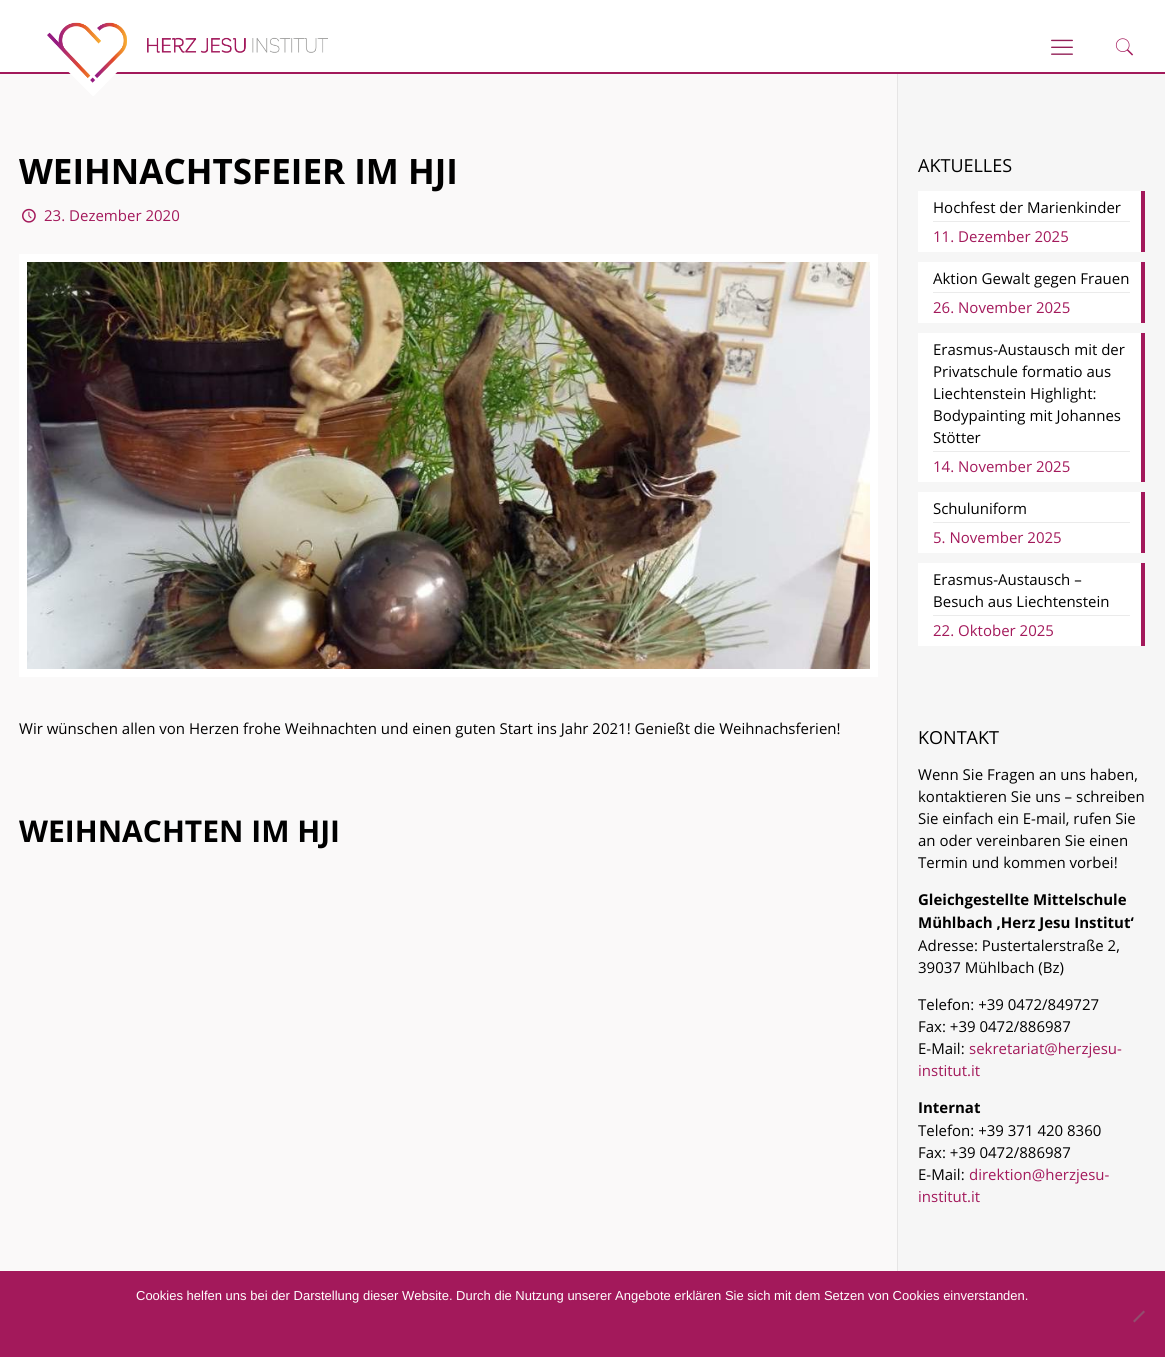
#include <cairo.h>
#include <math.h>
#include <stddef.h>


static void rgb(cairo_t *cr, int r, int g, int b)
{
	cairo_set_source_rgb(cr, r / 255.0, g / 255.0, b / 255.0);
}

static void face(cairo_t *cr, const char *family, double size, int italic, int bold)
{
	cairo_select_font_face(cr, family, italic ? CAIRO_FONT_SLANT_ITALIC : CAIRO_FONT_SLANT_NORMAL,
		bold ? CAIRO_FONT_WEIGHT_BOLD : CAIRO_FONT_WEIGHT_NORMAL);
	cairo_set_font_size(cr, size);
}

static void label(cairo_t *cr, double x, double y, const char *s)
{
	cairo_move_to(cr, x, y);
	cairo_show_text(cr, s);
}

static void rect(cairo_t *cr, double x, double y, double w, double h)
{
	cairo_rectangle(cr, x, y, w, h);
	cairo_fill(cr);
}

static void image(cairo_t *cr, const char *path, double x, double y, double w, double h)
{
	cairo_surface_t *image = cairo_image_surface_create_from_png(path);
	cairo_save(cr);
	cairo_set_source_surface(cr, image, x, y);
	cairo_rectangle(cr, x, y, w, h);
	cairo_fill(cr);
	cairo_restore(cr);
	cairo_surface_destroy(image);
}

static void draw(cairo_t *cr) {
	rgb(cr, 250, 249, 249);
	cairo_paint(cr);
	rgb(cr, 255, 255, 255);
	rect(cr, 0, 0, 1165, 72);
	rgb(cr, 162, 26, 91);
	rect(cr, 0, 72, 1165, 2);
	image(cr, "image0.png", 47, 22, 281, 74);
	image(cr, "image1.png", 1051, 39, 22, 16);
	image(cr, "image2.png", 1115, 38, 19, 18);
	face(cr, "Open Sans", 35, 0, 1);
	rgb(cr, 0, 0, 0);
	label(cr, 19, 184, "WEIHNACHTSFEIER IM HJI");
	image(cr, "image3.png", 22, 208, 14, 15);
	face(cr, "Open Sans", 15, 0, 0);
	rgb(cr, 163, 25, 91);
	label(cr, 44, 221, "23. Dezember 2020");
	cairo_rectangle(cr, 23, 258, 851, 415);
	rgb(cr, 255, 255, 255);
	cairo_set_line_width(cr, 8);
	cairo_stroke(cr);
	image(cr, "image4.png", 27, 262, 843, 407);
	rgb(cr, 0, 0, 0);
	label(cr, 19, 734, "Wir wünschen allen von Herzen frohe Weihnachten und einen guten Start ins Jahr 2021! Genießt die Weihnachsferien!");
	face(cr, "Open Sans", 30, 0, 1);
	label(cr, 19, 842, "WEIHNACHTEN IM HJI");
	rgb(cr, 230, 229, 229);
	rect(cr, 897, 74, 1, 1197);
	rgb(cr, 246, 246, 246);
	rect(cr, 898, 74, 267, 1197);
	face(cr, "Open Sans", 18, 0, 0);
	rgb(cr, 0, 0, 0);
	label(cr, 918, 172, "AKTUELLES");
	rgb(cr, 255, 255, 255);
	rect(cr, 918, 191, 223, 61);
	rgb(cr, 235, 235, 235);
	rect(cr, 933, 221, 197, 1);
	face(cr, "Open Sans", 15, 0, 0);
	rgb(cr, 0, 0, 0);
	label(cr, 933, 213, "Hochfest der Marienkinder");
	rgb(cr, 163, 25, 91);
	rect(cr, 1141, 191, 4, 61);
	label(cr, 933, 242, "11. Dezember 2025");
	rgb(cr, 255, 255, 255);
	rect(cr, 918, 262, 223, 61);
	rgb(cr, 235, 235, 235);
	rect(cr, 933, 292, 197, 1);
	rgb(cr, 0, 0, 0);
	label(cr, 933, 284, "Aktion Gewalt gegen Frauen");
	rgb(cr, 163, 25, 91);
	rect(cr, 1141, 262, 4, 61);
	label(cr, 933, 313, "26. November 2025");
	rgb(cr, 255, 255, 255);
	rect(cr, 918, 333, 223, 149);
	rgb(cr, 235, 235, 235);
	rect(cr, 933, 451, 197, 1);
	rgb(cr, 0, 0, 0);
	label(cr, 933, 355, "Erasmus-Austausch mit der");
	label(cr, 933, 377, "Privatschule formatio aus");
	label(cr, 933, 399, "Liechtenstein Highlight:");
	label(cr, 933, 421, "Bodypainting mit Johannes");
	label(cr, 933, 443, "Stötter");
	rgb(cr, 163, 25, 91);
	rect(cr, 1141, 333, 4, 149);
	label(cr, 933, 472, "14. November 2025");
	rgb(cr, 255, 255, 255);
	rect(cr, 918, 492, 223, 61);
	rgb(cr, 235, 235, 235);
	rect(cr, 933, 522, 197, 1);
	rgb(cr, 0, 0, 0);
	label(cr, 933, 514, "Schuluniform");
	rgb(cr, 163, 25, 91);
	rect(cr, 1141, 492, 4, 61);
	label(cr, 933, 543, "5. November 2025");
	rgb(cr, 255, 255, 255);
	rect(cr, 918, 563, 223, 83);
	rgb(cr, 235, 235, 235);
	rect(cr, 933, 615, 197, 1);
	rgb(cr, 0, 0, 0);
	label(cr, 933, 585, "Erasmus-Austausch –");
	label(cr, 933, 607, "Besuch aus Liechtenstein");
	rgb(cr, 163, 25, 91);
	rect(cr, 1141, 563, 4, 83);
	label(cr, 933, 636, "22. Oktober 2025");
	face(cr, "Open Sans", 18, 0, 0);
	rgb(cr, 0, 0, 0);
	label(cr, 918, 744, "KONTAKT");
	face(cr, "Open Sans", 15, 0, 0);
	label(cr, 918, 780, "Wenn Sie Fragen an uns haben,");
	label(cr, 918, 802, "kontaktieren Sie uns – schreiben");
	label(cr, 918, 824, "Sie einfach ein E-mail, rufen Sie");
	label(cr, 918, 846, "an oder vereinbaren Sie einen");
	label(cr, 918, 868, "Termin und kommen vorbei!");
	face(cr, "Open Sans", 15, 0, 1);
	label(cr, 918, 905, "Gleichgestellte Mittelschule");
	label(cr, 918, 928, "Mühlbach ‚Herz Jesu Institut‘");
	face(cr, "Open Sans", 15, 0, 0);
	label(cr, 918, 951, "Adresse: Pustertalerstraße 2,");
	label(cr, 918, 973, "39037 Mühlbach (Bz)");
	label(cr, 918, 1010, "Telefon: +39 0472/849727");
	label(cr, 918, 1032, "Fax: +39 0472/886987");
	label(cr, 918, 1054, "E-Mail:");
	rgb(cr, 163, 25, 91);
	label(cr, 969, 1054, "sekretariat@herzjesu-");
	label(cr, 918, 1076, "institut.it");
	face(cr, "Open Sans", 15, 0, 1);
	rgb(cr, 0, 0, 0);
	label(cr, 918, 1113, "Internat");
	face(cr, "Open Sans", 15, 0, 0);
	label(cr, 918, 1136, "Telefon: +39 371 420 8360");
	label(cr, 918, 1158, "Fax: +39 0472/886987");
	label(cr, 918, 1180, "E-Mail:");
	rgb(cr, 163, 25, 91);
	label(cr, 969, 1180, "direktion@herzjesu-");
	label(cr, 918, 1202, "institut.it");
	rect(cr, 0, 1271, 1165, 86);
	face(cr, "Liberation Sans", 13, 0, 0);
	rgb(cr, 255, 255, 255);
	label(cr, 136, 1300, "Cookies helfen uns bei der Darstellung dieser Website. Durch die Nutzung unserer Angebote erklären Sie sich mit dem Setzen von Cookies einverstanden.");
	rgb(cr, 146, 77, 110);
	cairo_new_path(cr);
	cairo_move_to(cr, 1143.5, 1310.5);
	cairo_line_to(cr, 1145, 1312);
	cairo_line_to(cr, 1134.5, 1322.5);
	cairo_line_to(cr, 1133, 1321);
	cairo_close_path(cr);
	cairo_fill(cr);
}

int main(void) {
	cairo_surface_t *surface = cairo_image_surface_create(CAIRO_FORMAT_RGB24, 1165, 1357);
	cairo_t *cr = cairo_create(surface);
	cairo_font_options_t *options = cairo_font_options_create();
	cairo_font_options_set_hint_metrics(options, CAIRO_HINT_METRICS_OFF);
	cairo_font_options_set_hint_style(options, CAIRO_HINT_STYLE_NONE);
	cairo_set_font_options(cr, options);
	cairo_set_miter_limit(cr, 4);
	draw(cr);
	cairo_surface_write_to_png(surface, "render.png");
	cairo_font_options_destroy(options);
	cairo_destroy(cr);
	cairo_surface_destroy(surface);
	return 0;
}
